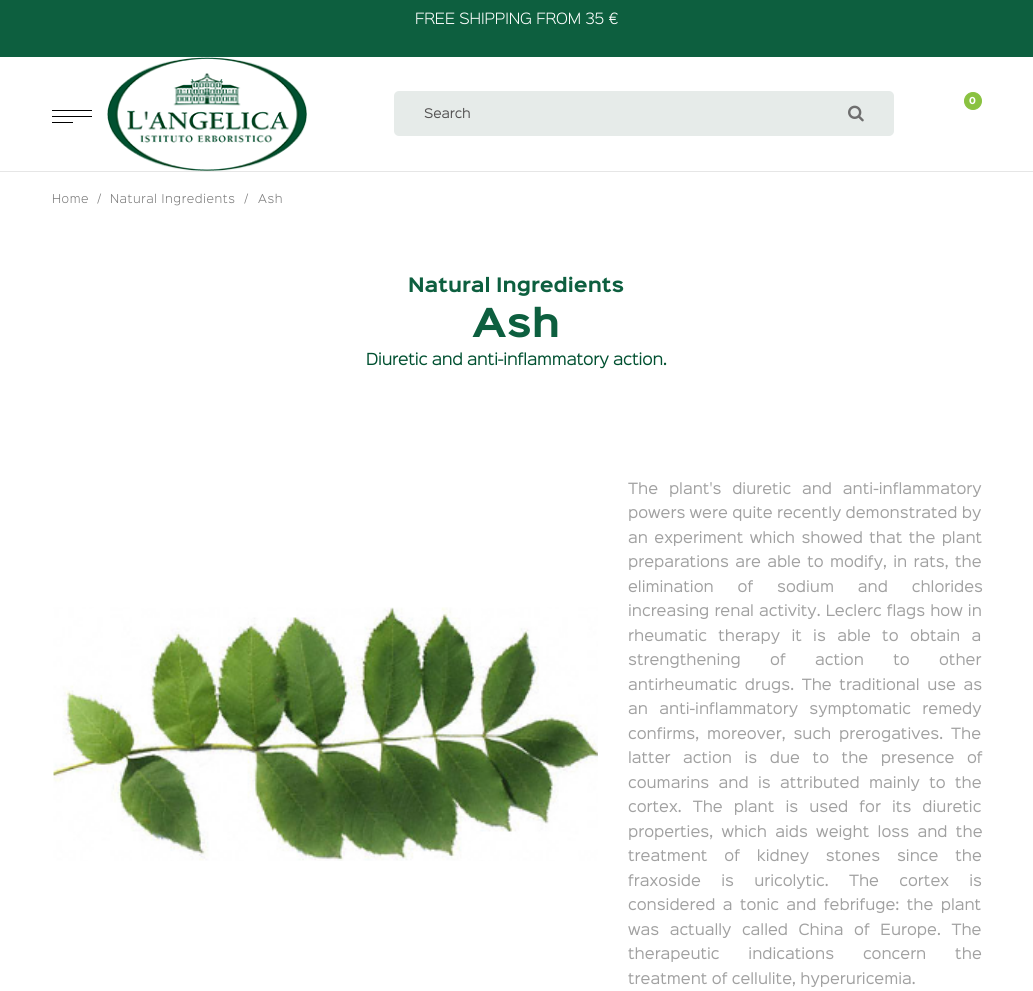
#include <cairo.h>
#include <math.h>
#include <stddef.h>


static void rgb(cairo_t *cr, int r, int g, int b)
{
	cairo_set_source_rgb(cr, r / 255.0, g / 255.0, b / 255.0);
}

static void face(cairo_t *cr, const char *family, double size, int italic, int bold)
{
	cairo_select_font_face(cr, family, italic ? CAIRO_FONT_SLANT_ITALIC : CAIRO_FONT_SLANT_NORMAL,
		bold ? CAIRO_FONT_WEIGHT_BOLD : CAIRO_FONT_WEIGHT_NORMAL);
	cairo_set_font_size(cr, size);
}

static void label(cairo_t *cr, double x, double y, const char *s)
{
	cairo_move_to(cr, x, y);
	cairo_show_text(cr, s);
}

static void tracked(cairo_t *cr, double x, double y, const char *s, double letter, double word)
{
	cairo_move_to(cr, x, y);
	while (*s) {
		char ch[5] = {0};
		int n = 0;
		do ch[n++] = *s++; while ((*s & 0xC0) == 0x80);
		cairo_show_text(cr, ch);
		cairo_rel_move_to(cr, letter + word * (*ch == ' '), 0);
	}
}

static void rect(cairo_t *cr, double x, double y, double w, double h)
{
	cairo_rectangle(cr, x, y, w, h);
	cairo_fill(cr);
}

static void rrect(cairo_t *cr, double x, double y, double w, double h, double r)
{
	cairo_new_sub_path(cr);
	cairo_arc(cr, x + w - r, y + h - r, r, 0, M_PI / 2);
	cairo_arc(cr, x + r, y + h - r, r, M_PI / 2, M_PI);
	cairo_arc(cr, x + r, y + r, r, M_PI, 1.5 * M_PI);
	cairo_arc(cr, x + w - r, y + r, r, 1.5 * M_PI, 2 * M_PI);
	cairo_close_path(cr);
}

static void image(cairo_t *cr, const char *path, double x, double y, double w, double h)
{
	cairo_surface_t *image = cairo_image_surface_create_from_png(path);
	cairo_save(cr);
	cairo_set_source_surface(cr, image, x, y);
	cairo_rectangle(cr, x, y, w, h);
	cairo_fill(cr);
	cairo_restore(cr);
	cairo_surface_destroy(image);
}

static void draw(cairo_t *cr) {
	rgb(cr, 255, 255, 255);
	cairo_paint(cr);
	rgb(cr, 13, 95, 63);
	rect(cr, 0, 0, 1033, 57);
	face(cr, "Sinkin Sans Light", 14, 0, 0);
	rgb(cr, 255, 255, 255);
	tracked(cr, 415, 24, "FREE SHIPPING FROM 35 €", -0.1, 0);
	rgb(cr, 0, 0, 0);
	rect(cr, 52, 110, 40, 1);
	rect(cr, 52, 116, 40, 1);
	rect(cr, 52, 122, 21, 1);
	image(cr, "image0.png", 107, 57, 200, 114);
	rgb(cr, 138, 194, 65);
	cairo_arc(cr, 973, 101, 8.5, 0, 2 * M_PI);
	cairo_fill_preserve(cr);
	cairo_set_line_width(cr, 1);
	cairo_stroke(cr);
	face(cr, "Montserrat", 10, 0, 1);
	rgb(cr, 255, 255, 255);
	tracked(cr, 969, 104, "0", -0.1, 0);
	rgb(cr, 230, 235, 233);
	rrect(cr, 394, 91, 500, 45, 5);
	cairo_fill(cr);
	face(cr, "Sinkin Sans", 12, 0, 0);
	rgb(cr, 84, 83, 83);
	tracked(cr, 424, 118, "Search", -0.1, 0);
	image(cr, "image1.png", 848, 105, 16, 17);
	rgb(cr, 230, 230, 230);
	rect(cr, 0, 171, 1033, 1);
	face(cr, "Sinkin Sans Light", 11, 0, 0);
	rgb(cr, 121, 121, 121);
	tracked(cr, 52, 203, "Home", 0.6, 0);
	tracked(cr, 98, 203, "/", 0.6, 0);
	tracked(cr, 110, 203, "Natural Ingredients", 0.6, 0);
	tracked(cr, 245, 203, "/", 0.6, 0);
	tracked(cr, 258, 203, "Ash", 0.6, 0);
	face(cr, "Sinkin Sans", 18, 0, 1);
	rgb(cr, 13, 95, 63);
	label(cr, 408, 292, "Natural Ingredients");
	face(cr, "Sinkin Sans", 36, 0, 1);
	label(cr, 472, 337, "Ash");
	face(cr, "Sinkin Sans", 15, 0, 0);
	rgb(cr, 0, 80, 48);
	tracked(cr, 366, 365, "Diuretic and anti-inflammatory action.", -0.4, 0);
	image(cr, "image2.png", 53, 607, 545, 254);
	face(cr, "Sinkin Sans", 14, 0, 0);
	rgb(cr, 161, 161, 161);
	tracked(cr, 628, 494, "The plant's diuretic and anti-inflammatory", 0, 6.5);
	label(cr, 628, 518, "powers were quite recently demonstrated by");
	tracked(cr, 628, 543, "an experiment which showed that the plant", 0, 2);
	tracked(cr, 628, 567, "preparations are able to modify, in rats, the", 0, 2);
	tracked(cr, 628, 592, "elimination of sodium and chlorides", 0, 19.5);
	tracked(cr, 628, 616, "increasing renal activity. Leclerc flags how in", 0, 0.75);
	tracked(cr, 628, 641, "rheumatic therapy it is able to obtain a", 0, 7);
	tracked(cr, 628, 665, "strengthening of action to other", 0, 25);
	tracked(cr, 628, 690, "antirheumatic drugs. The traditional use as", 0, 3.25);
	tracked(cr, 628, 714, "an anti-inflammatory symptomatic remedy", 0, 7);
	tracked(cr, 628, 739, "confirms, moreover, such prerogatives. The", 0, 3.5);
	tracked(cr, 628, 763, "latter action is due to the presence of", 0, 8.25);
	tracked(cr, 628, 788, "coumarins and is attributed mainly to the", 0, 5);
	tracked(cr, 628, 812, "cortex. The plant is used for its diuretic", 0, 6.75);
	tracked(cr, 628, 837, "properties, which aids weight loss and the", 0, 4);
	tracked(cr, 628, 861, "treatment of kidney stones since the", 0, 12.5);
	tracked(cr, 628, 886, "fraxoside is uricolytic. The cortex is", 0, 16);
	tracked(cr, 628, 910, "considered a tonic and febrifuge: the plant", 0, 3);
	tracked(cr, 628, 935, "was actually called China of Europe. The", 0, 6.25);
	tracked(cr, 628, 959, "therapeutic indications concern the", 0, 24.5);
	label(cr, 628, 984, "treatment of cellulite, hyperuricemia.");
}

int main(void) {
	cairo_surface_t *surface = cairo_image_surface_create(CAIRO_FORMAT_RGB24, 1033, 991);
	cairo_t *cr = cairo_create(surface);
	cairo_font_options_t *options = cairo_font_options_create();
	cairo_font_options_set_hint_metrics(options, CAIRO_HINT_METRICS_OFF);
	cairo_font_options_set_hint_style(options, CAIRO_HINT_STYLE_NONE);
	cairo_set_font_options(cr, options);
	cairo_set_miter_limit(cr, 4);
	draw(cr);
	cairo_surface_write_to_png(surface, "render.png");
	cairo_font_options_destroy(options);
	cairo_destroy(cr);
	cairo_surface_destroy(surface);
	return 0;
}
